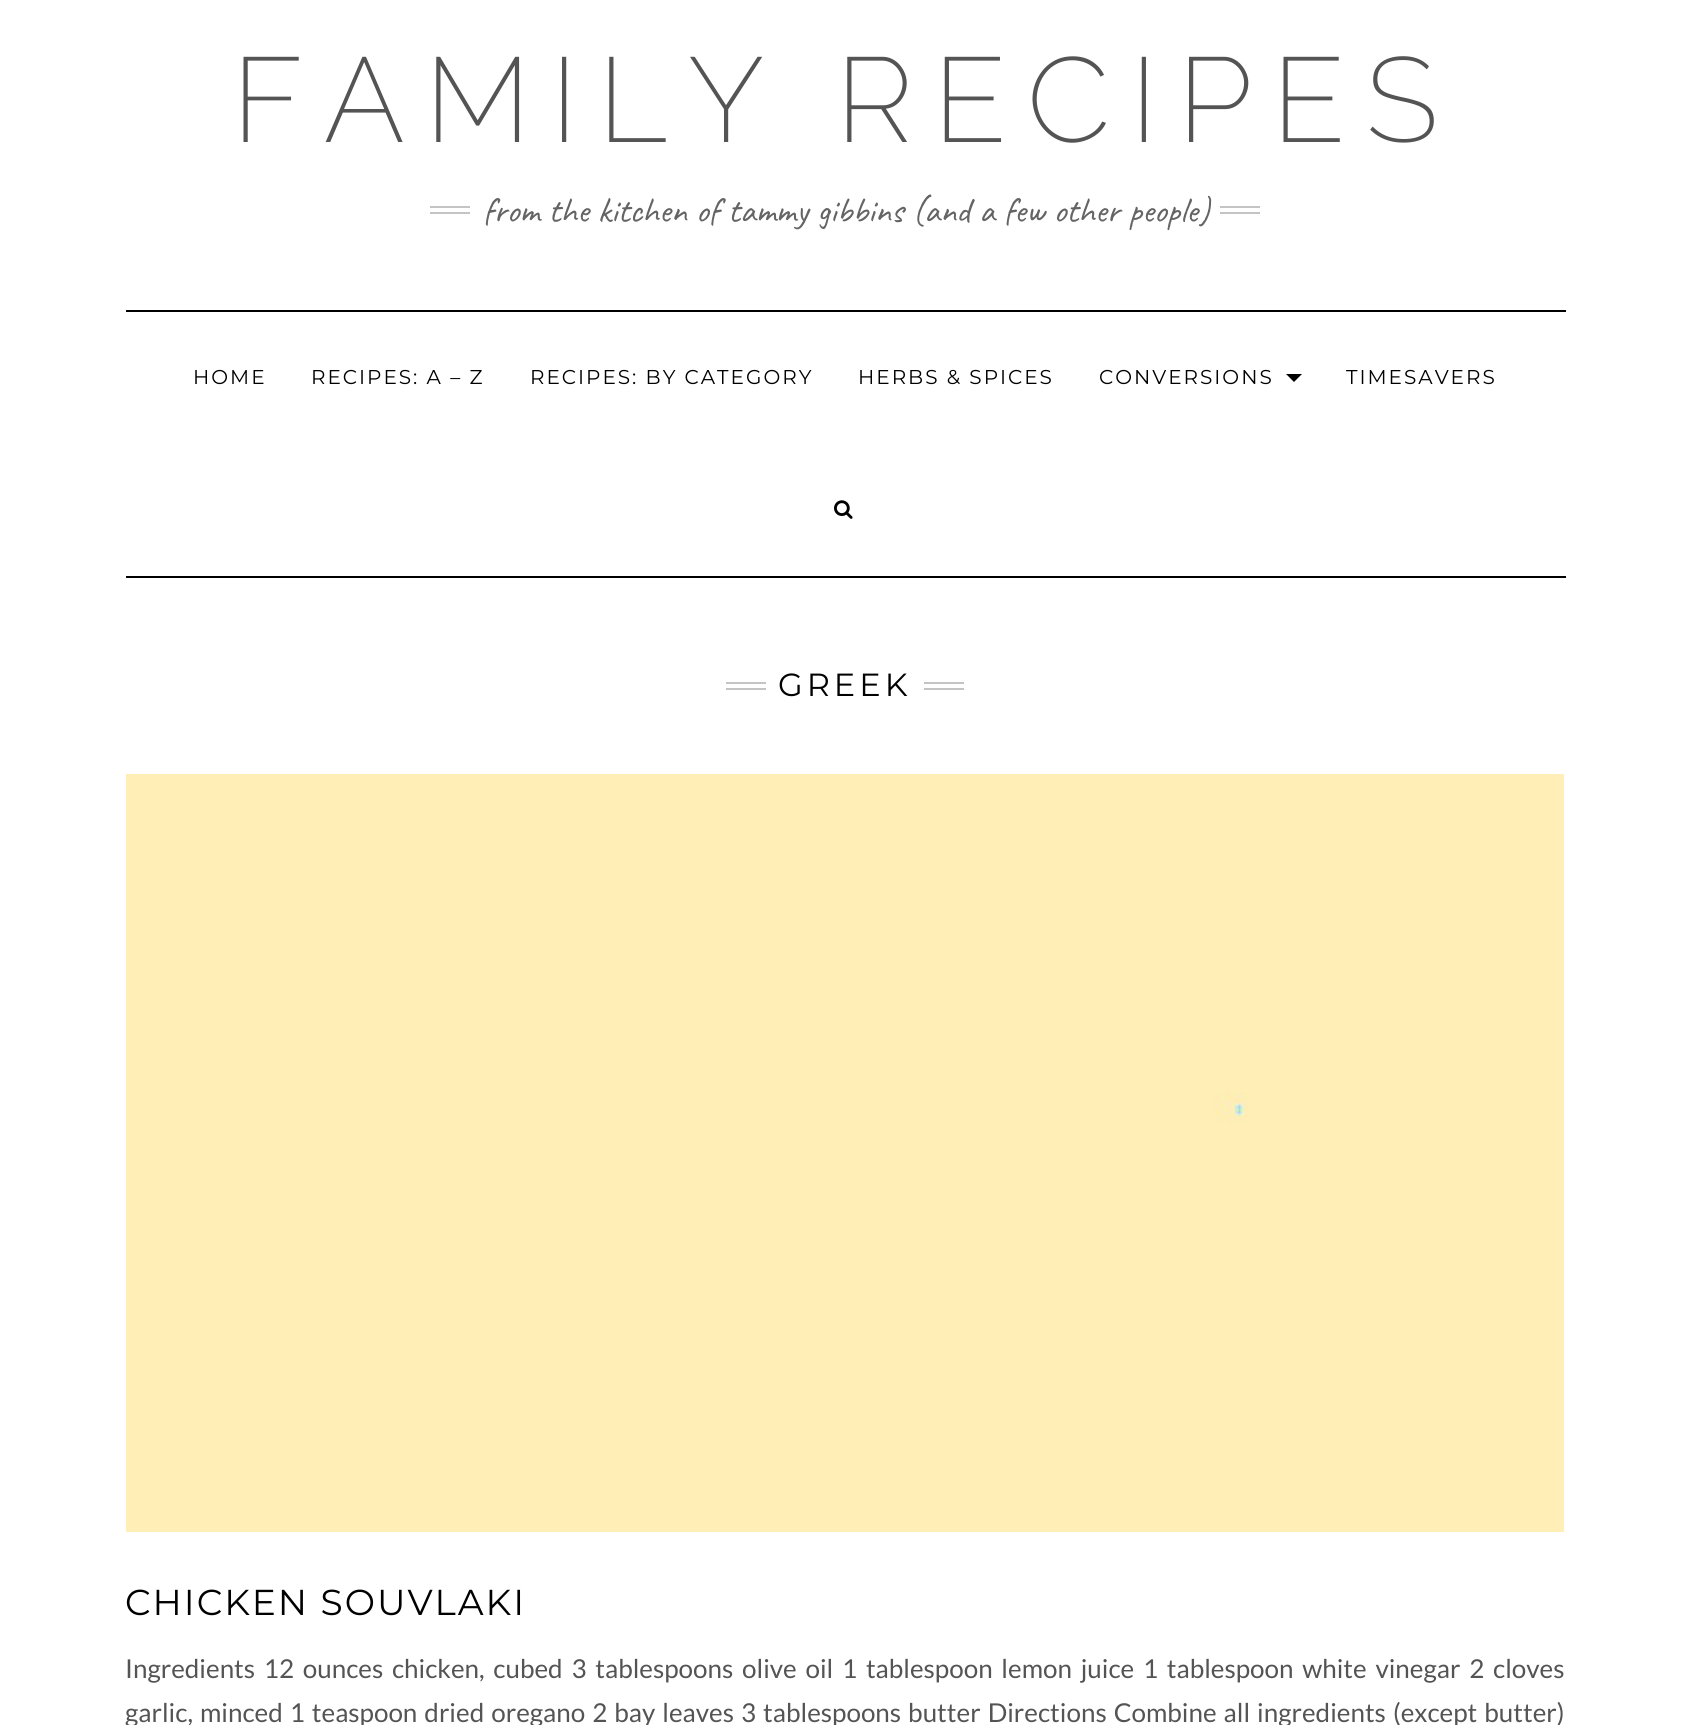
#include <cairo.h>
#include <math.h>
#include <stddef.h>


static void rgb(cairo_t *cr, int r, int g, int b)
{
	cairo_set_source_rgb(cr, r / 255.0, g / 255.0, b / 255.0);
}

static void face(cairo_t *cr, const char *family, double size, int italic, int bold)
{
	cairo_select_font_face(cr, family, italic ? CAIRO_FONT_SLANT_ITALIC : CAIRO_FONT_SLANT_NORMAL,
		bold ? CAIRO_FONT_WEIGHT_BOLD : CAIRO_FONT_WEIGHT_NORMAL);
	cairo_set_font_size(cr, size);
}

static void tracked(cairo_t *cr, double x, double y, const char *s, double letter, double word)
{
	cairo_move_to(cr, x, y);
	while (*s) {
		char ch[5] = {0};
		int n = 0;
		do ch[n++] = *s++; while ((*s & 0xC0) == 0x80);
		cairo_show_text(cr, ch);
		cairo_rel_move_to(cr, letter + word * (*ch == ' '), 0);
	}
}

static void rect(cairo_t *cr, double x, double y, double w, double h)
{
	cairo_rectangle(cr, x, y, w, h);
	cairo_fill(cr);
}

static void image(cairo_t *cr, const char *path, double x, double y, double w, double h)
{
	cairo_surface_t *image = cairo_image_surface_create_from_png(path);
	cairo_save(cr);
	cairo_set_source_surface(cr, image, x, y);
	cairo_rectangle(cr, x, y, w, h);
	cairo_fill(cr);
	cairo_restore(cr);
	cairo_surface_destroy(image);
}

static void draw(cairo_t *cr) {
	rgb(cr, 255, 255, 255);
	cairo_paint(cr);
	face(cr, "Raleway Thin", 120, 0, 0);
	rgb(cr, 84, 84, 84);
	tracked(cr, 232, 142, "FAMILY RECIPES", 20, 0);
	rgb(cr, 196, 196, 196);
	rect(cr, 430, 206, 40, 2);
	rect(cr, 430, 212, 40, 2);
	face(cr, "Caveat", 36, 0, 0);
	rgb(cr, 100, 100, 100);
	tracked(cr, 483, 222, "from the kitchen of tammy gibbins (and a few other people)", 0, 0.25);
	rgb(cr, 196, 196, 196);
	rect(cr, 1220, 206, 40, 2);
	rect(cr, 1220, 212, 40, 2);
	rgb(cr, 0, 0, 0);
	rect(cr, 126, 310, 1440, 2);
	rect(cr, 126, 576, 1440, 2);
	face(cr, "Montserrat", 20, 0, 0);
	tracked(cr, 193, 384, "HOME", 2, 0);
	tracked(cr, 311, 384, "RECIPES: A – Z", 2, 0);
	tracked(cr, 530, 384, "RECIPES: BY CATEGORY", 2, 0);
	tracked(cr, 858, 384, "HERBS & SPICES", 2, 0);
	tracked(cr, 1099, 384, "CONVERSIONS", 2, 0);
	cairo_new_path(cr);
	cairo_move_to(cr, 1286, 374);
	cairo_line_to(cr, 1302, 374);
	cairo_line_to(cr, 1294, 382);
	cairo_close_path(cr);
	cairo_fill(cr);
	tracked(cr, 1346, 384, "TIMESAVERS", 2, 0);
	image(cr, "image0.png", 834, 500, 19, 19);
	rgb(cr, 196, 196, 196);
	rect(cr, 726, 682, 40, 2);
	rect(cr, 726, 688, 40, 2);
	face(cr, "Montserrat", 32, 0, 0);
	rgb(cr, 0, 0, 0);
	tracked(cr, 778, 696, "GREEK", 4, 0);
	rgb(cr, 196, 196, 196);
	rect(cr, 924, 682, 40, 2);
	rect(cr, 924, 688, 40, 2);
	image(cr, "image1.png", 126, 774, 1438, 758);
	face(cr, "Montserrat", 36, 0, 0);
	rgb(cr, 0, 0, 0);
	tracked(cr, 125, 1615, "CHICKEN SOUVLAKI", 2, 0);
	face(cr, "Lato", 26, 0, 0);
	rgb(cr, 84, 84, 84);
	tracked(cr, 125, 1678, "Ingredients 12 ounces chicken, cubed 3 tablespoons olive oil 1 tablespoon lemon juice 1 tablespoon white vinegar 2 cloves", 0, 3.75);
	tracked(cr, 125, 1722, "garlic, minced 1 teaspoon dried oregano 2 bay leaves 3 tablespoons butter Directions Combine all ingredients (except butter)", 0, 2);
}

int main(void) {
	cairo_surface_t *surface = cairo_image_surface_create(CAIRO_FORMAT_RGB24, 1690, 1725);
	cairo_t *cr = cairo_create(surface);
	cairo_font_options_t *options = cairo_font_options_create();
	cairo_font_options_set_hint_metrics(options, CAIRO_HINT_METRICS_OFF);
	cairo_font_options_set_hint_style(options, CAIRO_HINT_STYLE_NONE);
	cairo_set_font_options(cr, options);
	cairo_set_miter_limit(cr, 4);
	draw(cr);
	cairo_surface_write_to_png(surface, "render.png");
	cairo_font_options_destroy(options);
	cairo_destroy(cr);
	cairo_surface_destroy(surface);
	return 0;
}
